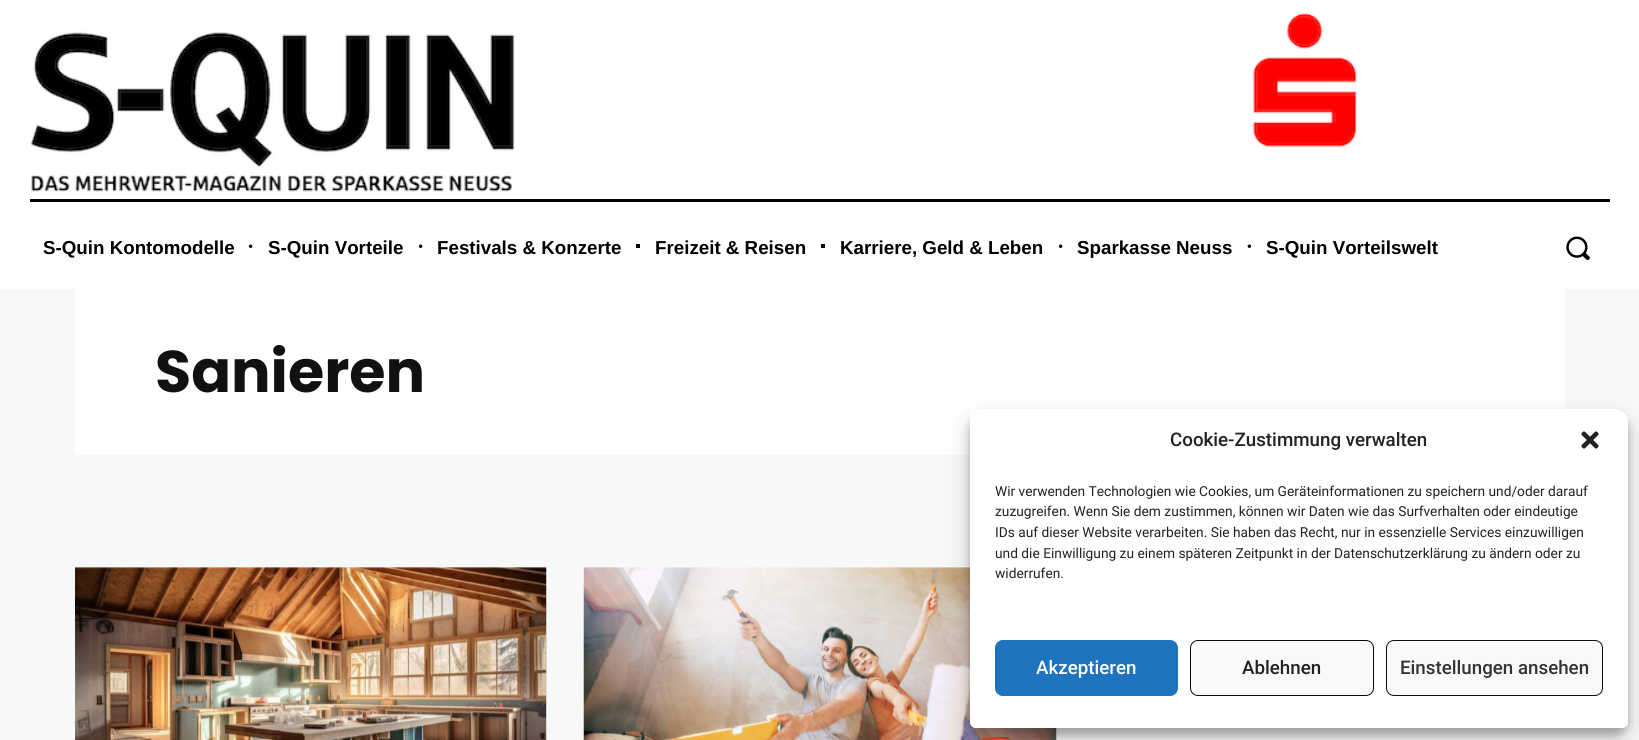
#include <cairo.h>
#include <math.h>
#include <stddef.h>


static void rgb(cairo_t *cr, int r, int g, int b)
{
	cairo_set_source_rgb(cr, r / 255.0, g / 255.0, b / 255.0);
}

static void face(cairo_t *cr, const char *family, double size, int italic, int bold)
{
	cairo_select_font_face(cr, family, italic ? CAIRO_FONT_SLANT_ITALIC : CAIRO_FONT_SLANT_NORMAL,
		bold ? CAIRO_FONT_WEIGHT_BOLD : CAIRO_FONT_WEIGHT_NORMAL);
	cairo_set_font_size(cr, size);
}

static void label(cairo_t *cr, double x, double y, const char *s)
{
	cairo_move_to(cr, x, y);
	cairo_show_text(cr, s);
}

static void rect(cairo_t *cr, double x, double y, double w, double h)
{
	cairo_rectangle(cr, x, y, w, h);
	cairo_fill(cr);
}

static void rrect(cairo_t *cr, double x, double y, double w, double h, double r)
{
	cairo_new_sub_path(cr);
	cairo_arc(cr, x + w - r, y + h - r, r, 0, M_PI / 2);
	cairo_arc(cr, x + r, y + h - r, r, M_PI / 2, M_PI);
	cairo_arc(cr, x + r, y + r, r, M_PI, 1.5 * M_PI);
	cairo_arc(cr, x + w - r, y + r, r, 1.5 * M_PI, 2 * M_PI);
	cairo_close_path(cr);
}

static void soft_shadow(cairo_t *cr, double x, double y, double w, double h, double r, double blur, double alpha)
{
	cairo_push_group_with_content(cr, CAIRO_CONTENT_ALPHA);
	cairo_set_operator(cr, CAIRO_OPERATOR_SOURCE);
	for (int i = 15; i >= -15 && fmin(w, h) + blur * i / 3 > 0; i -= 2) {
		double e = blur * i / 6;
		cairo_set_source_rgba(cr, 0, 0, 0, alpha * erfc((i - 1) / 8.5) / 2);
		rrect(cr, x - e, y - e, w + 2 * e, h + 2 * e, fmax(0, fmin(r + e + blur * .6, fmin(w, h) / 2 + e)));
		cairo_fill(cr);
	}
	cairo_pattern_t *soft = cairo_pop_group(cr);
	cairo_mask(cr, soft);
	cairo_pattern_destroy(soft);
}

static void image(cairo_t *cr, const char *path, double x, double y, double w, double h)
{
	cairo_surface_t *image = cairo_image_surface_create_from_png(path);
	cairo_save(cr);
	cairo_set_source_surface(cr, image, x, y);
	cairo_rectangle(cr, x, y, w, h);
	cairo_fill(cr);
	cairo_restore(cr);
	cairo_surface_destroy(image);
}

static void draw(cairo_t *cr) {
	rgb(cr, 247, 248, 248);
	cairo_paint(cr);
	rgb(cr, 255, 255, 255);
	rect(cr, 0, 0, 1639, 289);
	image(cr, "image0.png", 31, 12, 1326, 180);
	rgb(cr, 0, 0, 0);
	rect(cr, 30, 199, 1580, 3);
	face(cr, "Liberation Sans", 18.75, 0, 1);
	label(cr, 43, 254, "S-Quin Kontomodelle");
	image(cr, "image1.png", 248, 244, 5, 4);
	label(cr, 268, 254, "S-Quin Vorteile");
	image(cr, "image1.png", 418, 244, 5, 4);
	label(cr, 437, 254, "Festivals & Konzerte");
	rect(cr, 636, 244, 4, 4);
	label(cr, 655, 254, "Freizeit & Reisen");
	rect(cr, 821, 244, 4, 4);
	label(cr, 840, 254, "Karriere, Geld & Leben");
	image(cr, "image1.png", 1058, 244, 5, 4);
	label(cr, 1077, 254, "Sparkasse Neuss");
	image(cr, "image2.png", 1247, 244, 5, 4);
	label(cr, 1266, 254, "S-Quin Vorteilswelt");
	image(cr, "image3.png", 1566, 236, 24, 24);
	rgb(cr, 255, 255, 255);
	rect(cr, 75, 289, 1490, 166);
	face(cr, "Poppins", 58.75, 0, 1);
	rgb(cr, 17, 17, 17);
	label(cr, 155, 392, "Sanieren");
	image(cr, "image4.png", 75, 567, 472, 173);
	image(cr, "image5.png", 583, 567, 474, 173);
	rgb(cr, 0, 0, 0);
	soft_shadow(cr, 970, 416, 658, 319, 13, 4, 0.23);
	soft_shadow(cr, 970, 421, 658, 319, 13, 12.5, 0.19);
	rgb(cr, 255, 255, 255);
	cairo_new_path(cr);
	cairo_move_to(cr, 976, 409);
	cairo_line_to(cr, 1615, 409);
	cairo_curve_to(cr, 1622, 409, 1628, 415, 1628, 422);
	cairo_line_to(cr, 1628, 722);
	cairo_curve_to(cr, 1628, 725.5, 1625.5, 728, 1622, 728);
	cairo_line_to(cr, 976, 728);
	cairo_curve_to(cr, 972.5, 728, 970, 725.5, 970, 722);
	cairo_line_to(cr, 970, 415);
	cairo_curve_to(cr, 970, 411.5, 972.5, 409, 976, 409);
	cairo_close_path(cr);
	cairo_fill(cr);
	face(cr, "Roboto Medium", 18.75, 0, 0);
	rgb(cr, 34, 34, 34);
	label(cr, 1170, 446, "Cookie-Zustimmung verwalten");
	image(cr, "image6.png", 1581, 431, 18, 18);
	face(cr, "Roboto", 13.75, 0, 0);
	label(cr, 995, 496, "Wir verwenden Technologien wie Cookies, um Geräteinformationen zu speichern und/oder darauf");
	label(cr, 995, 516, "zuzugreifen. Wenn Sie dem zustimmen, können wir Daten wie das Surfverhalten oder eindeutige");
	label(cr, 995, 537, "IDs auf dieser Website verarbeiten. Sie haben das Recht, nur in essenzielle Services einzuwilligen");
	label(cr, 995, 558, "und die Einwilligung zu einem späteren Zeitpunkt in der Datenschutzerklärung zu ändern oder zu");
	label(cr, 995, 578, "widerrufen.");
	rgb(cr, 30, 115, 190);
	rrect(cr, 995.5, 640.5, 182, 55, 7.5);
	cairo_fill_preserve(cr);
	cairo_set_line_width(cr, 1);
	cairo_stroke(cr);
	face(cr, "Roboto Medium", 18.75, 0, 0);
	rgb(cr, 255, 255, 255);
	label(cr, 1036, 674, "Akzeptieren");
	rgb(cr, 249, 249, 249);
	rrect(cr, 1190.5, 640.5, 183, 55, 7.5);
	cairo_fill_preserve(cr);
	rgb(cr, 9, 9, 9);
	cairo_stroke(cr);
	rgb(cr, 34, 34, 34);
	label(cr, 1242, 674, "Ablehnen");
	rgb(cr, 249, 249, 249);
	rrect(cr, 1386.5, 640.5, 216, 55, 7.5);
	cairo_fill_preserve(cr);
	rgb(cr, 14, 14, 14);
	cairo_stroke(cr);
	rgb(cr, 51, 51, 51);
	label(cr, 1400, 674, "Einstellungen ansehen");
}

int main(void) {
	cairo_surface_t *surface = cairo_image_surface_create(CAIRO_FORMAT_RGB24, 1639, 740);
	cairo_t *cr = cairo_create(surface);
	cairo_font_options_t *options = cairo_font_options_create();
	cairo_font_options_set_hint_metrics(options, CAIRO_HINT_METRICS_OFF);
	cairo_font_options_set_hint_style(options, CAIRO_HINT_STYLE_NONE);
	cairo_set_font_options(cr, options);
	cairo_set_miter_limit(cr, 4);
	draw(cr);
	cairo_surface_write_to_png(surface, "render.png");
	cairo_font_options_destroy(options);
	cairo_destroy(cr);
	cairo_surface_destroy(surface);
	return 0;
}
